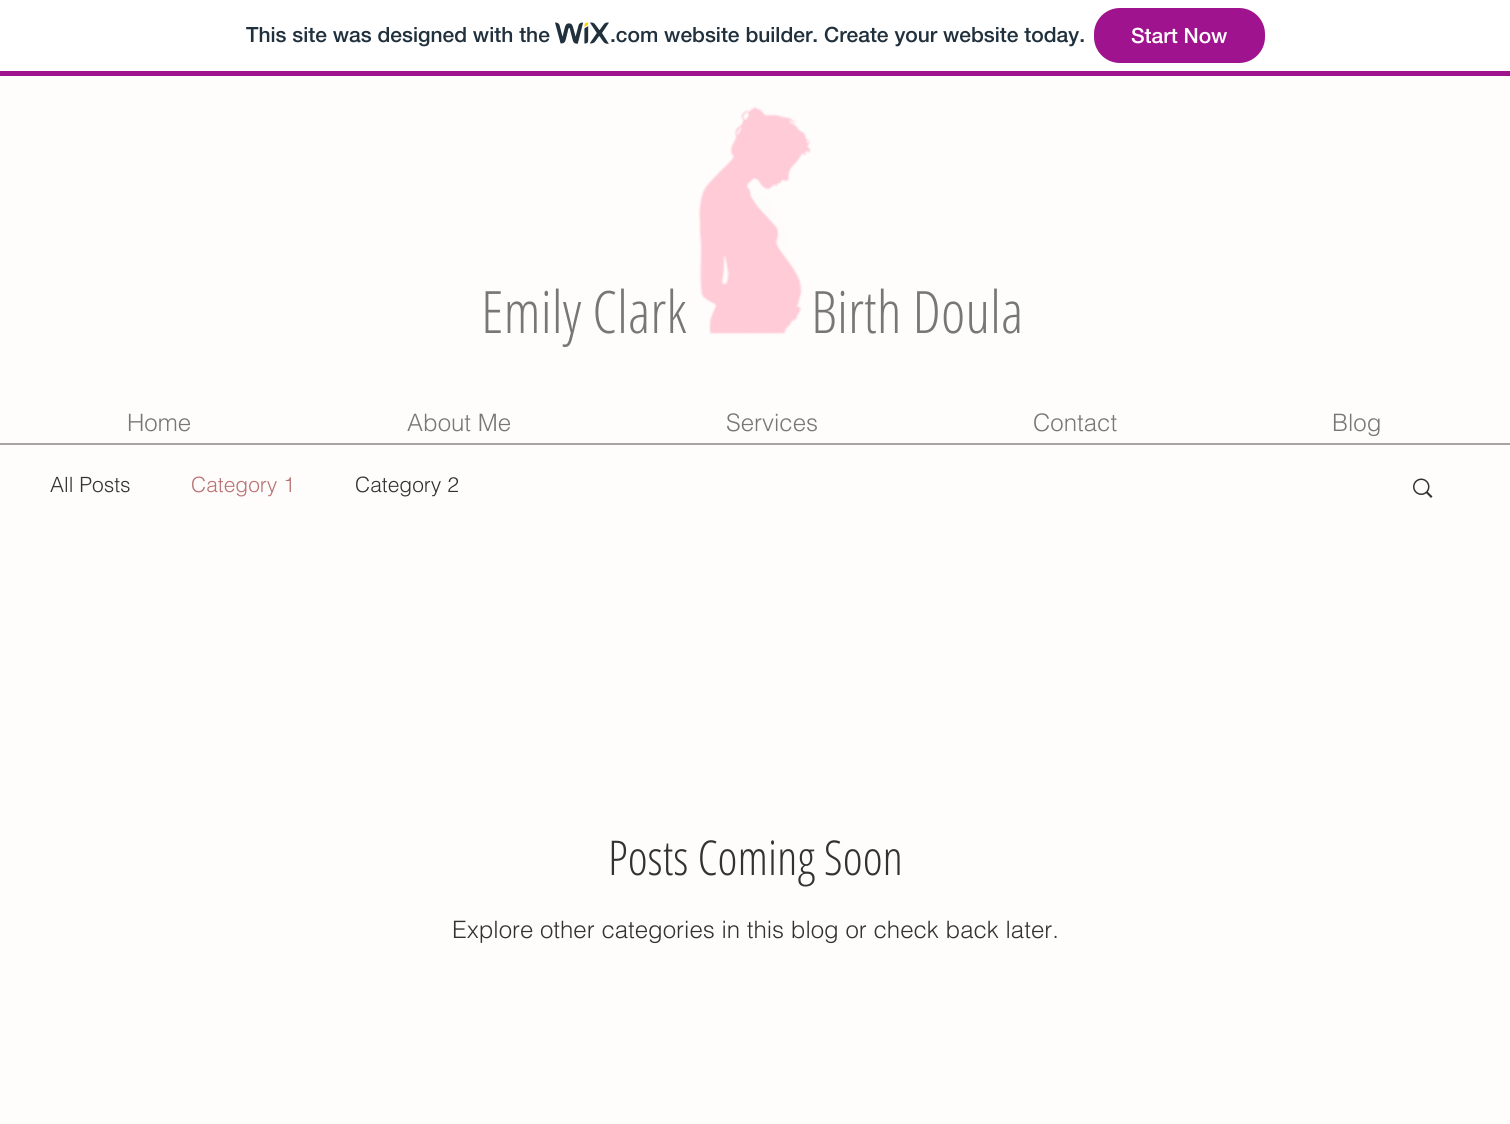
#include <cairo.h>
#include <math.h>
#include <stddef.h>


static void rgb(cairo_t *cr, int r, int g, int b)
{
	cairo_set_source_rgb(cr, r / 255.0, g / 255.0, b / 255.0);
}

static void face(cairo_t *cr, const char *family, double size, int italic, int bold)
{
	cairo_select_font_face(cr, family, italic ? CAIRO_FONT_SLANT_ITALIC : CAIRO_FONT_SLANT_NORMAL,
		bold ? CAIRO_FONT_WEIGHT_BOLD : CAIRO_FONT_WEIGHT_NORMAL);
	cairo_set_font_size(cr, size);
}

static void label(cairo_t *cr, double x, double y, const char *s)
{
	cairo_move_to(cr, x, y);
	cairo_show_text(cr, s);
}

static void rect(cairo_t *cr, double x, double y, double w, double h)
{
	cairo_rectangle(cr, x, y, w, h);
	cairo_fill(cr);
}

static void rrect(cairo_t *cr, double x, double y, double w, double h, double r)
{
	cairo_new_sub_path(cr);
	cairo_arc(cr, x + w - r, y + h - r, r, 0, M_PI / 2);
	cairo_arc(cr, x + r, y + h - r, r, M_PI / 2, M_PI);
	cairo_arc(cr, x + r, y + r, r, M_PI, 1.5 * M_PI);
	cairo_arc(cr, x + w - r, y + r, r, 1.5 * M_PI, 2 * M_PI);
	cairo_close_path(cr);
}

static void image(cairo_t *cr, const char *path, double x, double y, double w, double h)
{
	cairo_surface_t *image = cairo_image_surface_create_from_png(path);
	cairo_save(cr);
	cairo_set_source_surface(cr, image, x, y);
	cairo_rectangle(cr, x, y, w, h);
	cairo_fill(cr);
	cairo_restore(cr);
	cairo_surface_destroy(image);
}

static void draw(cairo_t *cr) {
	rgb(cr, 255, 252, 252);
	cairo_paint(cr);
	rgb(cr, 255, 255, 255);
	rect(cr, 0, 0, 1510, 71);
	rgb(cr, 160, 19, 142);
	rect(cr, 0, 71, 1510, 5);
	face(cr, "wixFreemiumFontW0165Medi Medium", 21, 0, 0);
	rgb(cr, 32, 48, 60);
	label(cr, 246, 42, "This site was designed with the");
	image(cr, "image0.png", 555, 22, 54, 22);
	label(cr, 610, 42, ".com website builder. Create your website today.");
	rgb(cr, 160, 19, 142);
	rrect(cr, 1095, 9, 169, 53, 25);
	cairo_fill_preserve(cr);
	cairo_stroke(cr);
	rgb(cr, 255, 255, 255);
	label(cr, 1131, 43, "Start Now");
	face(cr, "Open Sans Condensed Light", 58.5, 0, 0);
	rgb(cr, 120, 118, 118);
	label(cr, 481, 333, "Emily Clark");
	image(cr, "image1.png", 698, 106, 114, 229);
	label(cr, 811, 333, "Birth Doula");
	face(cr, "helvetica Light", 24, 0, 0);
	label(cr, 127, 431, "Home");
	label(cr, 407, 431, "About Me");
	label(cr, 726, 431, "Services");
	label(cr, 1033, 431, "Contact");
	label(cr, 1332, 431, "Blog");
	rgb(cr, 168, 164, 164);
	rect(cr, 0, 443, 1510, 2);
	face(cr, "helvetica Light", 21, 0, 0);
	rgb(cr, 51, 50, 50);
	label(cr, 50, 492, "All Posts");
	rgb(cr, 185, 115, 115);
	label(cr, 191, 492, "Category 1");
	rgb(cr, 51, 50, 50);
	label(cr, 355, 492, "Category 2");
	image(cr, "image2.png", 1413, 478, 20, 20);
	face(cr, "Open Sans Condensed Light", 48, 0, 0);
	label(cr, 608, 875, "Posts Coming Soon");
	face(cr, "helvetica Light", 24, 0, 0);
	label(cr, 452, 938, "Explore other categories in this blog or check back later.");
}

int main(void) {
	cairo_surface_t *surface = cairo_image_surface_create(CAIRO_FORMAT_RGB24, 1510, 1124);
	cairo_t *cr = cairo_create(surface);
	cairo_font_options_t *options = cairo_font_options_create();
	cairo_font_options_set_hint_metrics(options, CAIRO_HINT_METRICS_OFF);
	cairo_font_options_set_hint_style(options, CAIRO_HINT_STYLE_NONE);
	cairo_set_font_options(cr, options);
	cairo_set_miter_limit(cr, 4);
	draw(cr);
	cairo_surface_write_to_png(surface, "render.png");
	cairo_font_options_destroy(options);
	cairo_destroy(cr);
	cairo_surface_destroy(surface);
	return 0;
}
